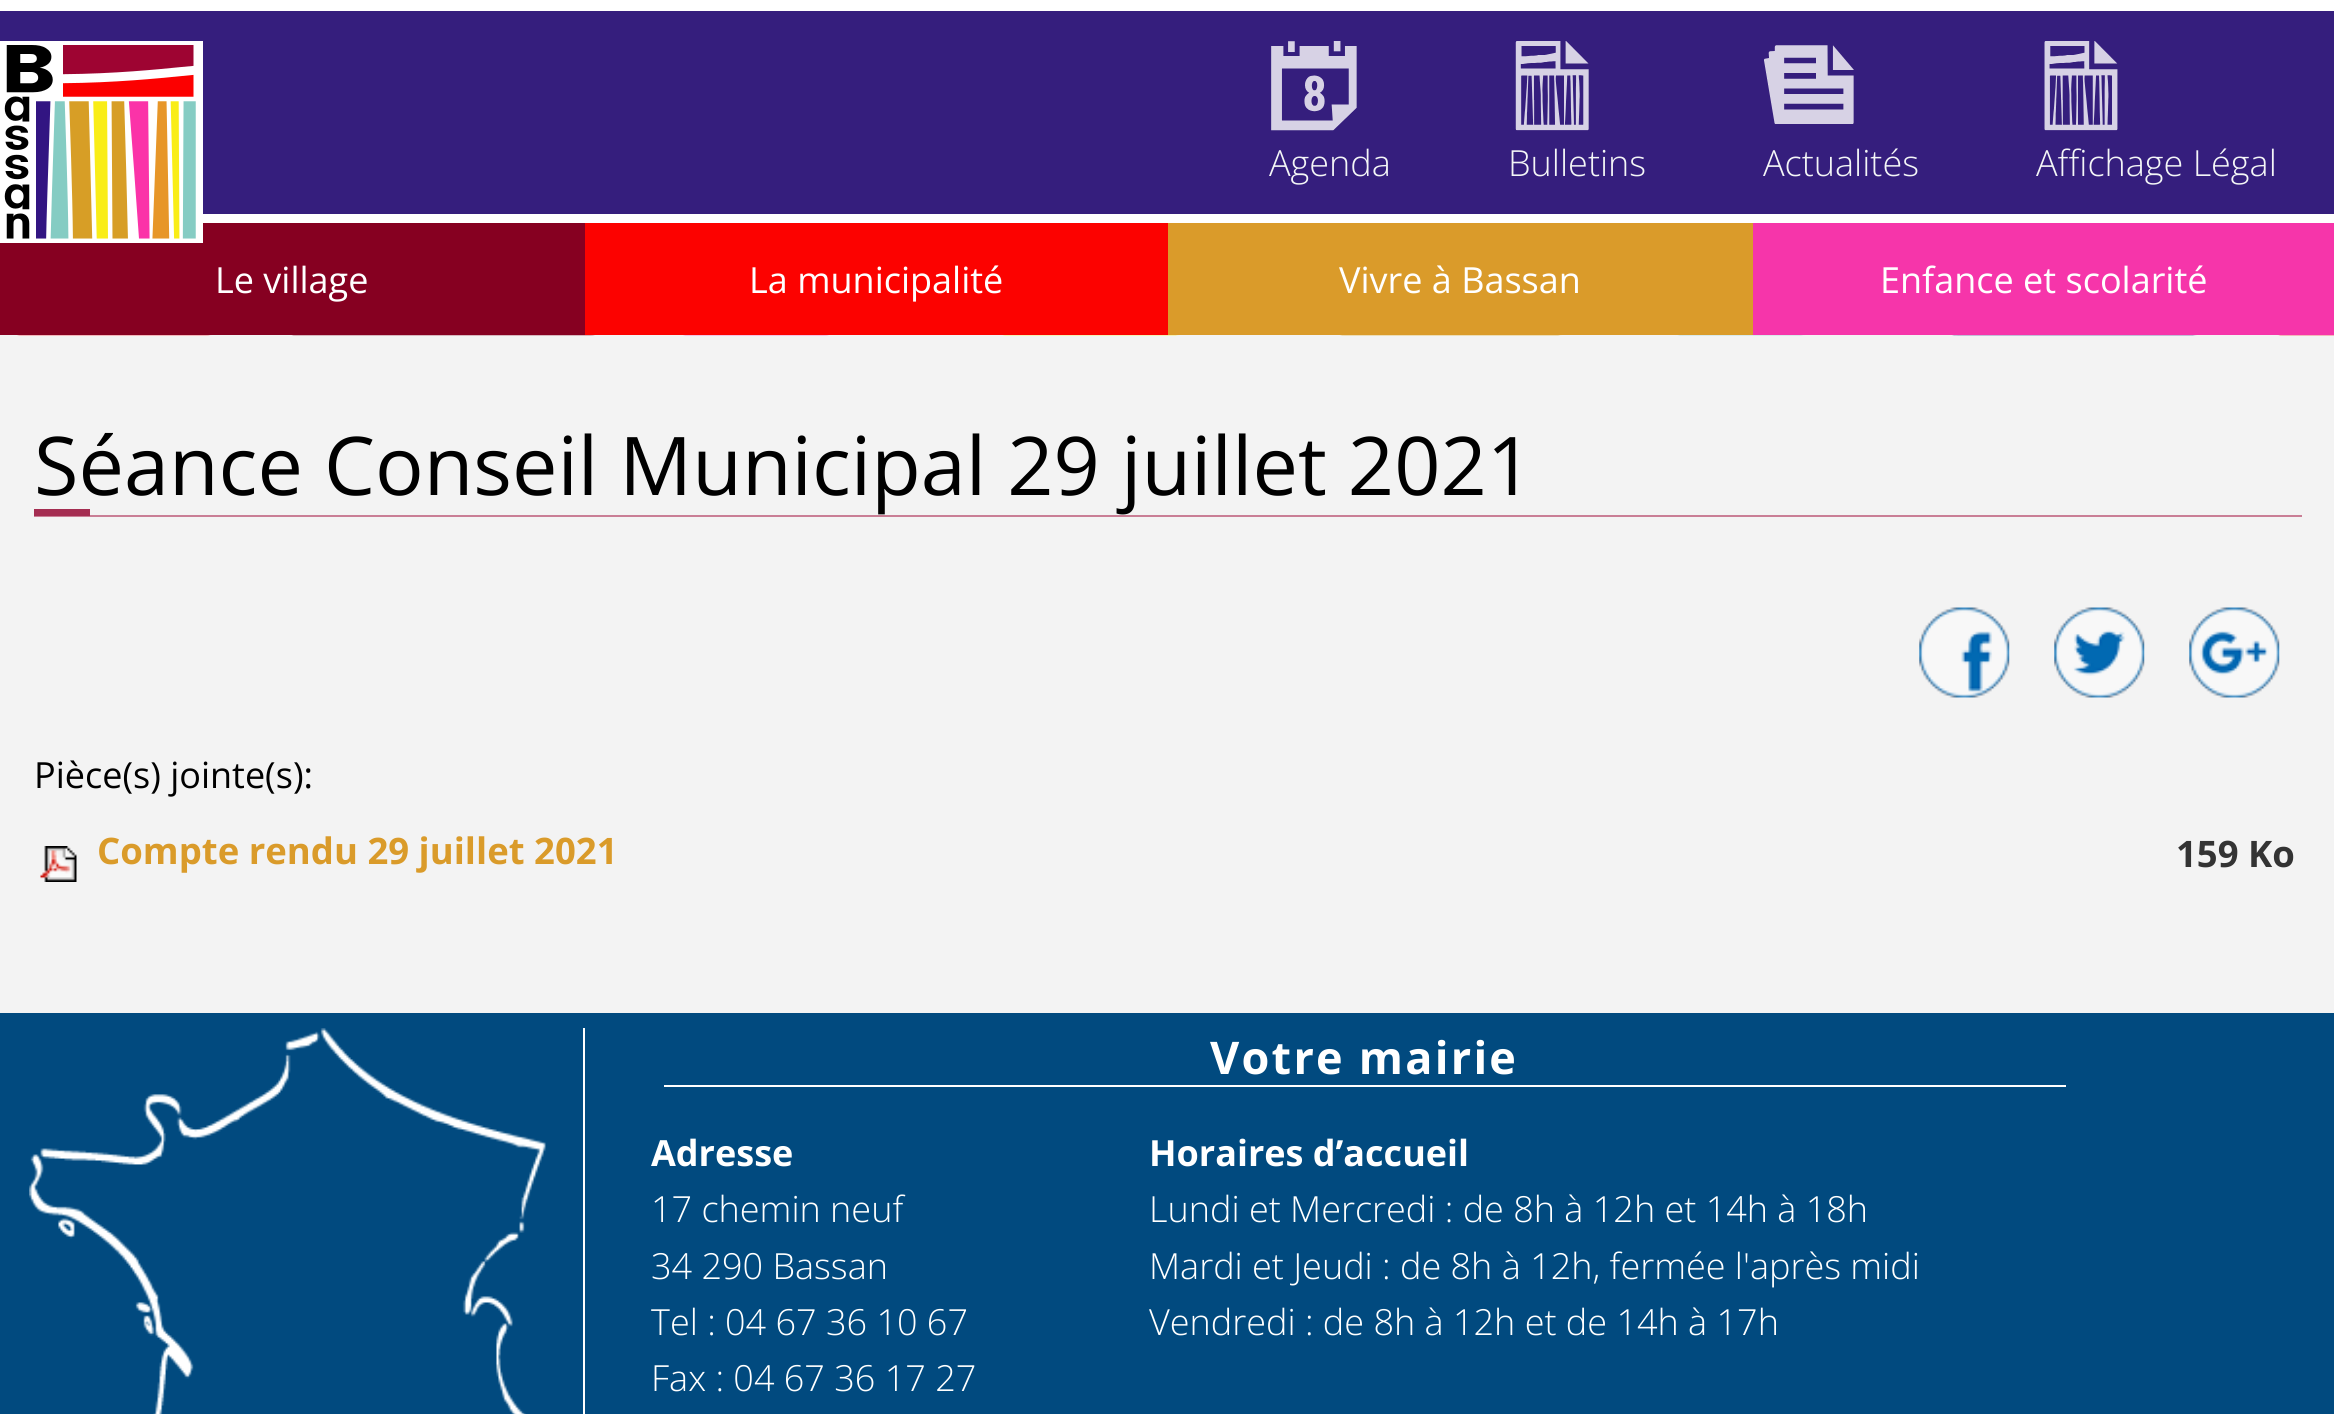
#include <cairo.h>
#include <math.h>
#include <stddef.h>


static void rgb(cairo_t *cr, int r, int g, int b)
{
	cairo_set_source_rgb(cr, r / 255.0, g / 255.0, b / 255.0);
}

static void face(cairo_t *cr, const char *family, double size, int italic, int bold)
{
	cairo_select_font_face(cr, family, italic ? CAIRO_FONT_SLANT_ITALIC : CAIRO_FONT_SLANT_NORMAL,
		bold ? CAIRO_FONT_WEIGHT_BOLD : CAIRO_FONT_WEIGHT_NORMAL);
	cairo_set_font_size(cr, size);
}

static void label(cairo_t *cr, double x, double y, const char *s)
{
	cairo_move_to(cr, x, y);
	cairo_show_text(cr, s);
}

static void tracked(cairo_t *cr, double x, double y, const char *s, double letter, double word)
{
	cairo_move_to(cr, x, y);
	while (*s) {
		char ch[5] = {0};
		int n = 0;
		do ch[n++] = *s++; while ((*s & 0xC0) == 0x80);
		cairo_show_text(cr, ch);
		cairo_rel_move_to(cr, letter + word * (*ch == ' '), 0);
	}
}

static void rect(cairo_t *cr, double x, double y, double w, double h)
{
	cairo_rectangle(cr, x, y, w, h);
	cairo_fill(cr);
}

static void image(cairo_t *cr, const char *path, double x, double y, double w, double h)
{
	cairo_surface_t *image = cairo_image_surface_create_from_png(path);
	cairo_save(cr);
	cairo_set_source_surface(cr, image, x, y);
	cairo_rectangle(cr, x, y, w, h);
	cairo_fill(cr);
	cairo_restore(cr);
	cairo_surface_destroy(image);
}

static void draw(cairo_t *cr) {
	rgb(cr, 243, 243, 243);
	cairo_paint(cr);
	rgb(cr, 53, 30, 125);
	rect(cr, 0, 11, 2334, 203);
	rgb(cr, 255, 255, 255);
	rect(cr, 0, 0, 2334, 11);
	rect(cr, 203, 214, 2131, 9);
	rgb(cr, 134, 0, 33);
	rect(cr, 0, 223, 585, 112);
	image(cr, "image0.png", 0, 41, 203, 202);
	image(cr, "image1.png", 1271, 41, 86, 90);
	face(cr, "Open Sans Light", 36, 0, 0);
	rgb(cr, 244, 246, 247);
	label(cr, 1269, 176, "Agenda");
	image(cr, "image2.png", 1515, 41, 74, 90);
	label(cr, 1508, 176, "Bulletins");
	image(cr, "image3.png", 1764, 45, 90, 79);
	label(cr, 1763, 176, "Actualités");
	image(cr, "image4.png", 2044, 41, 74, 90);
	label(cr, 2036, 176, "Affichage Légal");
	image(cr, "image5.png", 17, 335, 2317, 1);
	face(cr, "Open Sans", 36, 0, 0);
	rgb(cr, 255, 255, 255);
	label(cr, 215, 293, "Le village");
	rgb(cr, 252, 2, 0);
	rect(cr, 585, 223, 583, 112);
	rgb(cr, 255, 255, 255);
	label(cr, 749, 293, "La municipalité");
	rgb(cr, 218, 155, 42);
	rect(cr, 1168, 223, 585, 112);
	rgb(cr, 255, 255, 255);
	label(cr, 1339, 293, "Vivre à Bassan");
	rgb(cr, 246, 53, 170);
	rect(cr, 1753, 223, 581, 112);
	rgb(cr, 255, 255, 255);
	label(cr, 1880, 293, "Enfance et scolarité");
	rgb(cr, 201, 126, 149);
	rect(cr, 34, 515, 2268, 2);
	face(cr, "Open Sans", 81, 0, 0);
	rgb(cr, 0, 0, 0);
	label(cr, 34, 495, "Séance Conseil Municipal 29 juillet 2021");
	rgb(cr, 164, 45, 81);
	rect(cr, 34, 509, 56, 7);
	image(cr, "image6.png", 1919, 607, 91, 91);
	image(cr, "image7.png", 2054, 607, 91, 91);
	image(cr, "image8.png", 2189, 607, 91, 91);
	face(cr, "Open Sans", 36, 0, 0);
	rgb(cr, 0, 0, 0);
	label(cr, 34, 788, "Pièce(s) jointe(s):");
	image(cr, "image9.png", 40, 846, 37, 36);
	face(cr, "Open Sans", 36.5, 0, 1);
	rgb(cr, 218, 155, 42);
	label(cr, 97, 864, "Compte rendu 29 juillet 2021");
	rgb(cr, 51, 51, 51);
	label(cr, 2176, 867, "159 Ko");
	rgb(cr, 1, 74, 127);
	rect(cr, 0, 1013, 2334, 401);
	image(cr, "image10.png", 29, 1028, 517, 386);
	rgb(cr, 255, 255, 255);
	rect(cr, 583, 1028, 2, 386);
	rect(cr, 664, 1085, 1402, 2);
	face(cr, "Open Sans", 45, 0, 1);
	tracked(cr, 1210, 1074, "Votre mairie", 2.25, 0);
	face(cr, "Open Sans", 36, 0, 1);
	label(cr, 651, 1166, "Adresse");
	face(cr, "Open Sans Light", 36, 0, 0);
	label(cr, 651, 1222, "17 chemin neuf");
	label(cr, 651, 1279, "34 290 Bassan");
	label(cr, 651, 1335, "Tel : 04 67 36 10 67");
	label(cr, 651, 1391, "Fax : 04 67 36 17 27");
	face(cr, "Open Sans", 36, 0, 1);
	label(cr, 1149, 1166, "Horaires d’accueil");
	face(cr, "Open Sans Light", 36, 0, 0);
	label(cr, 1149, 1222, "Lundi et Mercredi : de 8h à 12h et 14h à 18h");
	label(cr, 1149, 1279, "Mardi et Jeudi : de 8h à 12h, fermée l'après midi");
	label(cr, 1149, 1335, "Vendredi : de 8h à 12h et de 14h à 17h");
}

int main(void) {
	cairo_surface_t *surface = cairo_image_surface_create(CAIRO_FORMAT_RGB24, 2334, 1414);
	cairo_t *cr = cairo_create(surface);
	cairo_font_options_t *options = cairo_font_options_create();
	cairo_font_options_set_hint_metrics(options, CAIRO_HINT_METRICS_OFF);
	cairo_font_options_set_hint_style(options, CAIRO_HINT_STYLE_NONE);
	cairo_set_font_options(cr, options);
	cairo_set_miter_limit(cr, 4);
	draw(cr);
	cairo_surface_write_to_png(surface, "render.png");
	cairo_font_options_destroy(options);
	cairo_destroy(cr);
	cairo_surface_destroy(surface);
	return 0;
}
